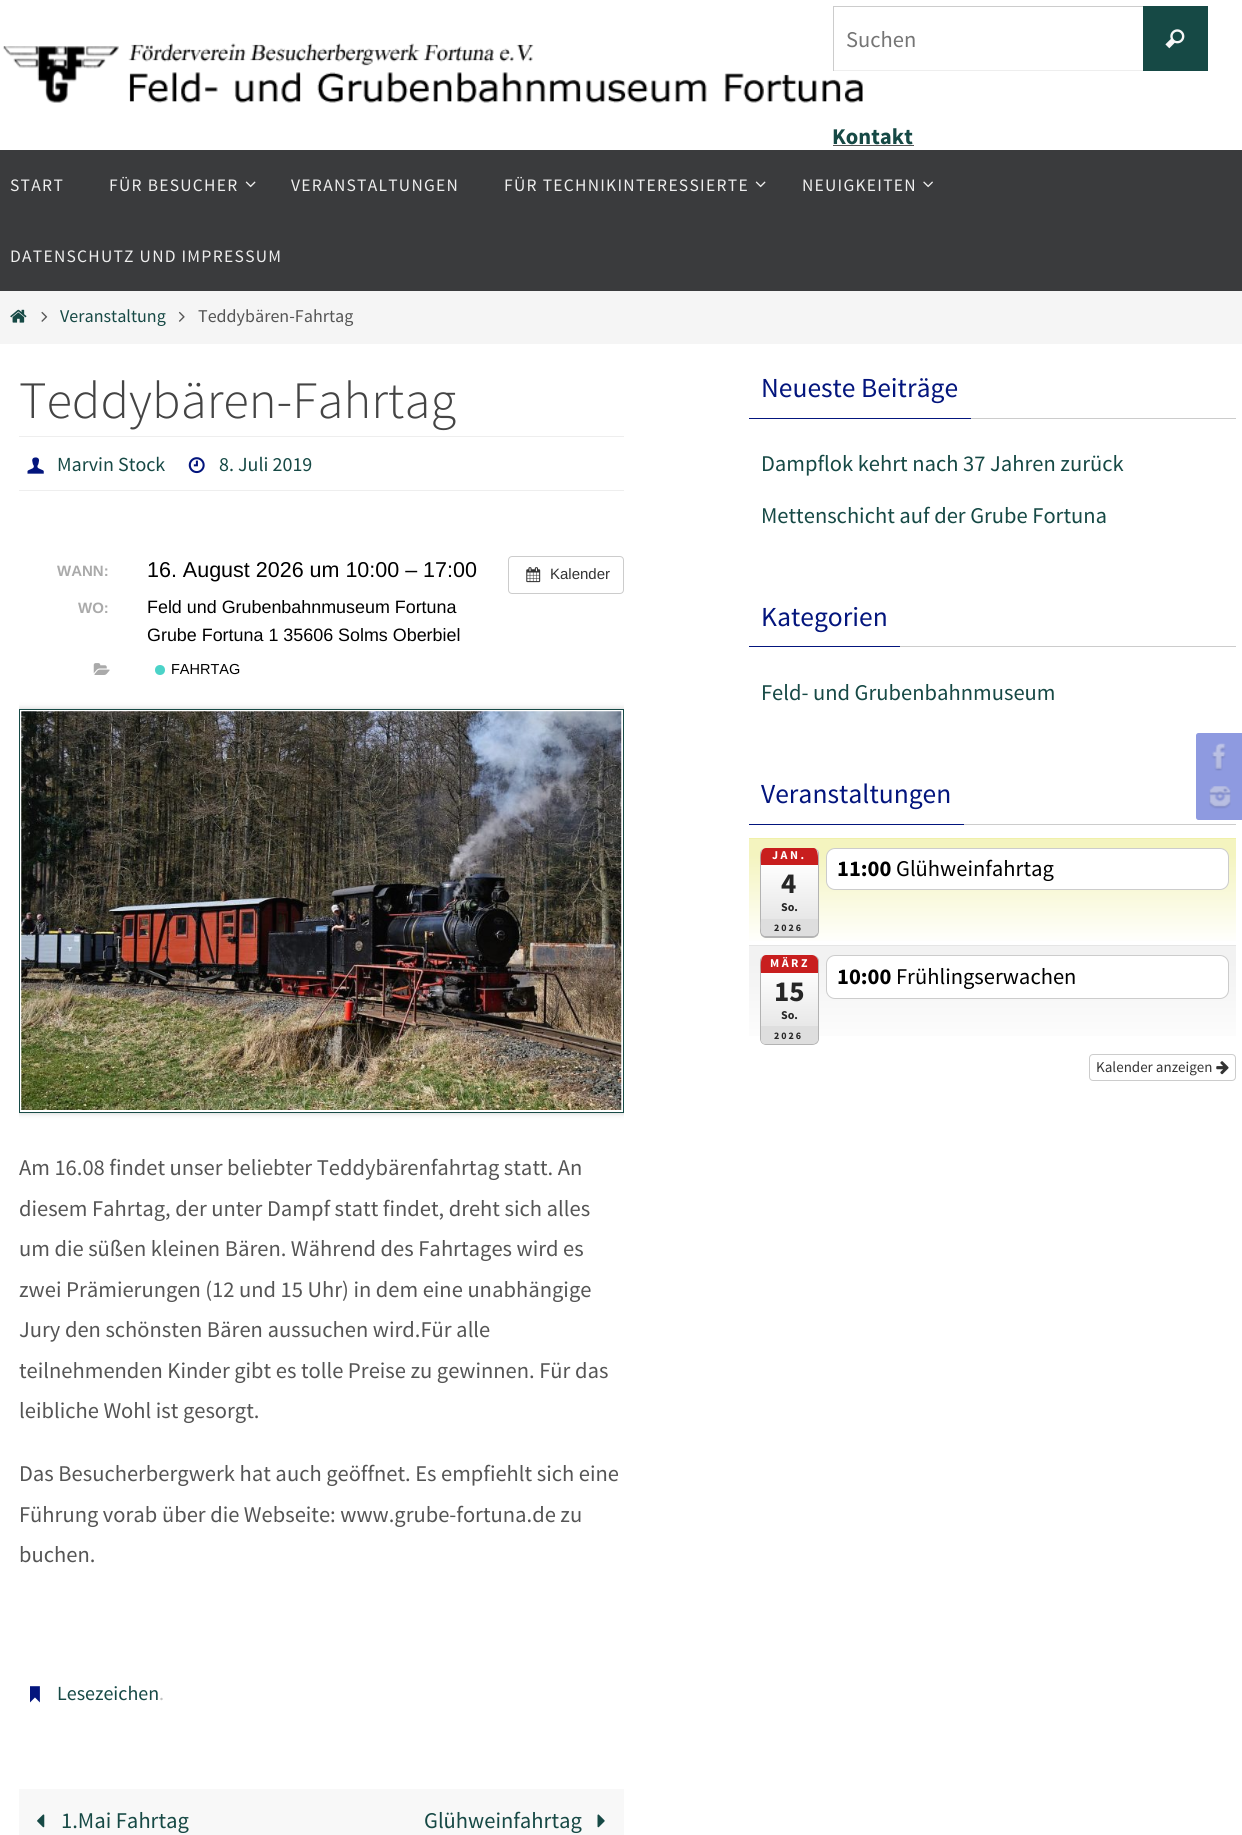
#include <cairo.h>
#include <math.h>
#include <stddef.h>


static void rgb(cairo_t *cr, int r, int g, int b)
{
	cairo_set_source_rgb(cr, r / 255.0, g / 255.0, b / 255.0);
}

static void face(cairo_t *cr, const char *family, double size, int italic, int bold)
{
	cairo_select_font_face(cr, family, italic ? CAIRO_FONT_SLANT_ITALIC : CAIRO_FONT_SLANT_NORMAL,
		bold ? CAIRO_FONT_WEIGHT_BOLD : CAIRO_FONT_WEIGHT_NORMAL);
	cairo_set_font_size(cr, size);
}

static void label(cairo_t *cr, double x, double y, const char *s)
{
	cairo_move_to(cr, x, y);
	cairo_show_text(cr, s);
}

static void tracked(cairo_t *cr, double x, double y, const char *s, double letter, double word)
{
	cairo_move_to(cr, x, y);
	while (*s) {
		char ch[5] = {0};
		int n = 0;
		do ch[n++] = *s++; while ((*s & 0xC0) == 0x80);
		cairo_show_text(cr, ch);
		cairo_rel_move_to(cr, letter + word * (*ch == ' '), 0);
	}
}

static void rect(cairo_t *cr, double x, double y, double w, double h)
{
	cairo_rectangle(cr, x, y, w, h);
	cairo_fill(cr);
}

static void rrect(cairo_t *cr, double x, double y, double w, double h, double r)
{
	cairo_new_sub_path(cr);
	cairo_arc(cr, x + w - r, y + h - r, r, 0, M_PI / 2);
	cairo_arc(cr, x + r, y + h - r, r, M_PI / 2, M_PI);
	cairo_arc(cr, x + r, y + r, r, M_PI, 1.5 * M_PI);
	cairo_arc(cr, x + w - r, y + r, r, 1.5 * M_PI, 2 * M_PI);
	cairo_close_path(cr);
}

static void soft_shadow(cairo_t *cr, double x, double y, double w, double h, double r, double blur, double alpha)
{
	cairo_push_group_with_content(cr, CAIRO_CONTENT_ALPHA);
	cairo_set_operator(cr, CAIRO_OPERATOR_SOURCE);
	for (int i = 15; i >= -15 && fmin(w, h) + blur * i / 3 > 0; i -= 2) {
		double e = blur * i / 6;
		cairo_set_source_rgba(cr, 0, 0, 0, alpha * erfc((i - 1) / 8.5) / 2);
		rrect(cr, x - e, y - e, w + 2 * e, h + 2 * e, fmax(0, fmin(r + e + blur * .6, fmin(w, h) / 2 + e)));
		cairo_fill(cr);
	}
	cairo_pattern_t *soft = cairo_pop_group(cr);
	cairo_mask(cr, soft);
	cairo_pattern_destroy(soft);
}

static void image(cairo_t *cr, const char *path, double x, double y, double w, double h)
{
	cairo_surface_t *image = cairo_image_surface_create_from_png(path);
	cairo_save(cr);
	cairo_set_source_surface(cr, image, x, y);
	cairo_rectangle(cr, x, y, w, h);
	cairo_fill(cr);
	cairo_restore(cr);
	cairo_surface_destroy(image);
}

static void draw(cairo_t *cr) {
	cairo_pattern_t *gradient;
	rgb(cr, 255, 255, 255);
	cairo_paint(cr);
	image(cr, "image0.png", 3, 43, 860, 60);
	rgb(cr, 22, 73, 69);
	rect(cr, 1143, 6, 65, 65);
	rgb(cr, 204, 204, 204);
	rect(cr, 833, 6, 310, 1);
	rgb(cr, 238, 238, 238);
	rect(cr, 833, 70, 310, 1);
	rgb(cr, 204, 204, 204);
	rect(cr, 833, 6, 1, 65);
	face(cr, "Source Sans Pro", 22.5, 0, 0);
	rgb(cr, 117, 117, 117);
	label(cr, 846, 47, "Suchen");
	image(cr, "image1.png", 1165, 29, 20, 20);
	face(cr, "Source Sans Pro", 22.5, 0, 1);
	rgb(cr, 22, 73, 69);
	label(cr, 832, 144, "Kontakt");
	rgb(cr, 85, 85, 85);
	rect(cr, 833, 145, 81, 1);
	rgb(cr, 58, 59, 61);
	rect(cr, 0, 150, 1242, 141);
	face(cr, "Source Sans Pro", 17.5, 0, 0);
	rgb(cr, 238, 238, 238);
	tracked(cr, 10, 191, "START", 1.25, 0);
	tracked(cr, 109, 191, "FÜR BESUCHER", 1.25, 0);
	image(cr, "image2.png", 245, 181, 11, 7);
	tracked(cr, 291, 191, "VERANSTALTUNGEN", 1.25, 0);
	tracked(cr, 504, 191, "FÜR TECHNIKINTERESSIERTE", 1.25, 0);
	image(cr, "image2.png", 755, 181, 11, 7);
	tracked(cr, 802, 191, "NEUIGKEITEN", 1.25, 0);
	image(cr, "image3.png", 923, 181, 10, 7);
	tracked(cr, 10, 262, "DATENSCHUTZ UND IMPRESSUM", 1.25, 0);
	rgb(cr, 245, 245, 245);
	rect(cr, 0, 291, 1242, 53);
	image(cr, "image4.png", 10, 309, 17, 14);
	image(cr, "image5.png", 41, 311, 7, 11);
	face(cr, "Source Sans Pro", 18, 0, 0);
	rgb(cr, 22, 73, 69);
	label(cr, 60, 322, "Veranstaltung");
	image(cr, "image6.png", 178, 311, 7, 11);
	rgb(cr, 85, 85, 85);
	label(cr, 198, 322, "Teddybären-Fahrtag");
	face(cr, "Source Sans Pro Light", 52.5, 0, 0);
	rgb(cr, 68, 68, 68);
	label(cr, 19, 418, "Teddybären-Fahrtag");
	rgb(cr, 238, 238, 238);
	rect(cr, 19, 436, 605, 1);
	rect(cr, 19, 490, 605, 1);
	image(cr, "image7.png", 27, 457, 17, 17);
	face(cr, "Source Sans Pro", 20, 0, 0);
	rgb(cr, 22, 73, 69);
	label(cr, 57, 471, "Marvin Stock");
	image(cr, "image8.png", 188, 457, 17, 17);
	label(cr, 219, 471, "8. Juli 2019");
	face(cr, "Liberation Sans", 15, 0, 1);
	rgb(cr, 170, 170, 170);
	label(cr, 57, 576, "WANN:");
	face(cr, "Liberation Sans", 21.5, 0, 0);
	rgb(cr, 0, 0, 0);
	label(cr, 147, 577, "16. August 2026 um 10:00 – 17:00");
	face(cr, "Liberation Sans", 15, 0, 1);
	rgb(cr, 170, 170, 170);
	label(cr, 78, 613, "WO:");
	face(cr, "Liberation Sans", 17.9, 0, 0);
	rgb(cr, 0, 0, 0);
	label(cr, 147, 613, "Feld und Grubenbahnmuseum Fortuna");
	label(cr, 147, 641, "Grube Fortuna 1 35606 Solms Oberbiel");
	image(cr, "image9.png", 93, 663, 17, 12);
	rgb(cr, 75, 211, 200);
	cairo_arc(cr, 160, 670, 5, 0, 2 * M_PI);
	cairo_fill(cr);
	face(cr, "Liberation Sans", 14.5, 0, 0);
	rgb(cr, 0, 0, 0);
	label(cr, 171, 674, "FAHRTAG");
	rrect(cr, 508.5, 556.5, 115, 37, 3.5);
	rgb(cr, 204, 204, 204);
	cairo_set_line_width(cr, 1);
	cairo_stroke(cr);
	image(cr, "image10.png", 526, 567, 15, 16);
	face(cr, "Liberation Sans", 15, 0, 0);
	rgb(cr, 51, 51, 51);
	label(cr, 550, 579, "Kalender");
	cairo_save(cr);
	cairo_rectangle(cr, 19, 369, 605, 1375);
	cairo_clip(cr);
	cairo_set_fill_rule(cr, CAIRO_FILL_RULE_EVEN_ODD);
	cairo_new_path(cr);
	cairo_move_to(cr, 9, 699);
	cairo_line_to(cr, 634, 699);
	cairo_line_to(cr, 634, 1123);
	cairo_line_to(cr, 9, 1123);
	cairo_close_path(cr);
	cairo_move_to(cr, 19, 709);
	cairo_line_to(cr, 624, 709);
	cairo_line_to(cr, 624, 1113);
	cairo_line_to(cr, 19, 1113);
	cairo_close_path(cr);
	cairo_clip(cr);
	rgb(cr, 205, 205, 205);
	soft_shadow(cr, 19, 709, 605, 404, 0, 3, 1);
	cairo_restore(cr);
	cairo_rectangle(cr, 19.5, 709.5, 604, 403);
	rgb(cr, 24, 75, 71);
	cairo_stroke(cr);
	image(cr, "image11.png", 21, 711, 601, 399);
	face(cr, "Source Sans Pro", 22.5, 0, 0);
	rgb(cr, 85, 85, 85);
	label(cr, 19, 1175, "Am 16.08 findet unser beliebter Teddybärenfahrtag statt. An");
	label(cr, 19, 1216, "diesem Fahrtag, der unter Dampf statt findet, dreht sich alles");
	label(cr, 19, 1256, "um die süßen kleinen Bären. Während des Fahrtages wird es");
	label(cr, 19, 1297, "zwei Prämierungen (12 und 15 Uhr) in dem eine unabhängige");
	label(cr, 19, 1337, "Jury den schönsten Bären aussuchen wird.Für alle");
	label(cr, 19, 1378, "teilnehmenden Kinder gibt es tolle Preise zu gewinnen. Für das");
	label(cr, 19, 1418, "leibliche Wohl ist gesorgt.");
	label(cr, 19, 1481, "Das Besucherbergwerk hat auch geöffnet. Es empfiehlt sich eine");
	label(cr, 19, 1522, "Führung vorab über die Webseite: www.grube-fortuna.de zu");
	label(cr, 19, 1562, "buchen.");
	image(cr, "image12.png", 30, 1686, 10, 17);
	face(cr, "Source Sans Pro", 20, 0, 0);
	rgb(cr, 22, 73, 69);
	label(cr, 57, 1700, "Lesezeichen");
	rgb(cr, 193, 193, 193);
	label(cr, 159, 1700, ".");
	rgb(cr, 248, 248, 248);
	rect(cr, 19, 1789, 605, 46);
	image(cr, "image13.png", 37, 1814, 8, 14);
	face(cr, "Source Sans Pro", 22.5, 0, 0);
	rgb(cr, 22, 73, 69);
	label(cr, 61, 1828, "1.Mai Fahrtag");
	label(cr, 424, 1828, "Glühweinfahrtag");
	image(cr, "image14.png", 597, 1814, 8, 14);
	rgb(cr, 204, 204, 204);
	rect(cr, 971, 418, 265, 1);
	rgb(cr, 3, 21, 125);
	rect(cr, 749, 418, 222, 1);
	face(cr, "Source Sans Pro", 27.5, 0, 0);
	label(cr, 761, 397, "Neueste Beiträge");
	face(cr, "Source Sans Pro", 22.5, 0, 0);
	rgb(cr, 22, 73, 69);
	label(cr, 761, 471, "Dampflok kehrt nach 37 Jahren zurück");
	label(cr, 761, 523, "Mettenschicht auf der Grube Fortuna");
	rgb(cr, 204, 204, 204);
	rect(cr, 900, 646, 336, 1);
	rgb(cr, 3, 21, 125);
	rect(cr, 749, 646, 151, 1);
	face(cr, "Source Sans Pro", 27.5, 0, 0);
	label(cr, 761, 626, "Kategorien");
	face(cr, "Source Sans Pro", 22.5, 0, 0);
	rgb(cr, 22, 73, 69);
	label(cr, 761, 700, "Feld- und Grubenbahnmuseum");
	rgb(cr, 204, 204, 204);
	rect(cr, 964, 824, 272, 1);
	rgb(cr, 3, 21, 125);
	rect(cr, 749, 824, 215, 1);
	face(cr, "Source Sans Pro", 27.5, 0, 0);
	label(cr, 761, 803, "Veranstaltungen");
	gradient = cairo_pattern_create_linear(993, 839, 993, 945);
	cairo_pattern_add_color_stop_rgba(gradient, 0, 0.957, 0.957, 0.749, 1);
	cairo_pattern_add_color_stop_rgba(gradient, 0.15, 0.957, 0.957, 0.749, 1);
	cairo_pattern_add_color_stop_rgba(gradient, 1, 1, 1, 1, 1);
	cairo_set_source(cr, gradient);
	cairo_pattern_destroy(gradient);
	rect(cr, 749, 839, 487, 102);
	rgb(cr, 240, 240, 169);
	rect(cr, 749, 838, 487, 1);
	cairo_save(cr);
	rrect(cr, 760, 848, 59, 90, 6);
	cairo_clip(cr);
	gradient = cairo_pattern_create_linear(789, 848, 789, 936);
	cairo_pattern_add_color_stop_rgba(gradient, 0, 1, 1, 1, 1);
	cairo_pattern_add_color_stop_rgba(gradient, 0.16, 1, 1, 1, 1);
	cairo_pattern_add_color_stop_rgba(gradient, 1, 0.878, 0.878, 0.878, 1);
	cairo_set_source(cr, gradient);
	cairo_pattern_destroy(gradient);
	rect(cr, 761, 848, 57, 88);
	cairo_restore(cr);
	rgb(cr, 179, 179, 179);
	cairo_set_fill_rule(cr, CAIRO_FILL_RULE_EVEN_ODD);
	cairo_new_path(cr);
	cairo_move_to(cr, 766, 848);
	cairo_line_to(cr, 812, 848);
	cairo_curve_to(cr, 816, 848, 819, 850, 819, 854);
	cairo_line_to(cr, 819, 931);
	cairo_curve_to(cr, 819, 935, 816, 938, 812, 938);
	cairo_line_to(cr, 766, 938);
	cairo_curve_to(cr, 763, 938, 760, 935, 760, 931);
	cairo_line_to(cr, 760, 854);
	cairo_curve_to(cr, 760, 850, 763, 848, 766, 848);
	cairo_close_path(cr);
	cairo_move_to(cr, 766, 848);
	cairo_line_to(cr, 812, 848);
	cairo_curve_to(cr, 815, 848, 818, 850, 818, 854);
	cairo_line_to(cr, 818, 931);
	cairo_curve_to(cr, 818, 934, 815, 936, 812, 936);
	cairo_line_to(cr, 766, 936);
	cairo_curve_to(cr, 763, 936, 761, 934, 761, 931);
	cairo_line_to(cr, 761, 854);
	cairo_curve_to(cr, 761, 850, 763, 848, 766, 848);
	cairo_close_path(cr);
	cairo_fill(cr);
	rgb(cr, 200, 30, 30);
	cairo_set_fill_rule(cr, CAIRO_FILL_RULE_WINDING);
	cairo_new_path(cr);
	cairo_move_to(cr, 766, 848);
	cairo_line_to(cr, 814, 848);
	cairo_curve_to(cr, 819, 849, 818, 861, 818, 865);
	cairo_line_to(cr, 761, 865);
	cairo_curve_to(cr, 761, 861, 759, 848, 766, 848);
	cairo_close_path(cr);
	cairo_fill(cr);
	face(cr, "Source Sans Pro", 12, 0, 1);
	rgb(cr, 255, 255, 255);
	tracked(cr, 772, 859, "JAN.", 2.5, 0);
	face(cr, "Source Sans Pro", 29, 0, 1);
	rgb(cr, 38, 38, 38);
	label(cr, 781, 893, "4");
	face(cr, "Source Sans Pro", 12, 0, 1);
	label(cr, 781, 911, "So.");
	rgb(cr, 222, 222, 222);
	cairo_new_path(cr);
	cairo_move_to(cr, 765, 936);
	cairo_curve_to(cr, 759, 934, 761, 923, 761, 919);
	cairo_line_to(cr, 818, 919);
	cairo_line_to(cr, 818, 931);
	cairo_curve_to(cr, 818, 933, 816, 935, 814, 936);
	cairo_close_path(cr);
	cairo_fill(cr);
	face(cr, "Source Sans Pro", 10, 0, 1);
	rgb(cr, 38, 38, 38);
	tracked(cr, 774, 931, "2026", 2, 0);
	rgb(cr, 255, 255, 255);
	rrect(cr, 826.5, 848.5, 402, 41, 8.5);
	cairo_fill_preserve(cr);
	rgb(cr, 204, 204, 204);
	cairo_stroke(cr);
	face(cr, "Source Sans Pro", 22.5, 0, 1);
	rgb(cr, 0, 0, 0);
	label(cr, 837, 876, "11:00");
	face(cr, "Source Sans Pro", 22.5, 0, 0);
	label(cr, 896, 876, "Glühweinfahrtag");
	gradient = cairo_pattern_create_linear(993, 946, 993, 1054);
	cairo_pattern_add_color_stop_rgba(gradient, 0, 0.949, 0.949, 0.949, 1);
	cairo_pattern_add_color_stop_rgba(gradient, 0.15, 0.949, 0.949, 0.949, 1);
	cairo_pattern_add_color_stop_rgba(gradient, 1, 1, 1, 1, 1);
	cairo_set_source(cr, gradient);
	cairo_pattern_destroy(gradient);
	rect(cr, 749, 946, 487, 90);
	rgb(cr, 229, 229, 229);
	rect(cr, 749, 945, 487, 1);
	cairo_save(cr);
	rrect(cr, 760, 955, 59, 90, 6);
	cairo_clip(cr);
	gradient = cairo_pattern_create_linear(789, 955, 789, 1044);
	cairo_pattern_add_color_stop_rgba(gradient, 0, 1, 1, 1, 1);
	cairo_pattern_add_color_stop_rgba(gradient, 0.16, 1, 1, 1, 1);
	cairo_pattern_add_color_stop_rgba(gradient, 1, 0.878, 0.878, 0.878, 1);
	cairo_set_source(cr, gradient);
	cairo_pattern_destroy(gradient);
	rect(cr, 761, 955, 57, 89);
	cairo_restore(cr);
	rgb(cr, 179, 179, 179);
	cairo_set_fill_rule(cr, CAIRO_FILL_RULE_EVEN_ODD);
	cairo_new_path(cr);
	cairo_move_to(cr, 766, 955);
	cairo_line_to(cr, 812, 955);
	cairo_curve_to(cr, 816, 955, 819, 958, 819, 961);
	cairo_line_to(cr, 819, 1039);
	cairo_curve_to(cr, 819, 1042, 816, 1045, 812, 1045);
	cairo_line_to(cr, 766, 1045);
	cairo_curve_to(cr, 763, 1045, 760, 1042, 760, 1039);
	cairo_line_to(cr, 760, 961);
	cairo_curve_to(cr, 760, 958, 763, 955, 766, 955);
	cairo_close_path(cr);
	cairo_move_to(cr, 766, 955);
	cairo_line_to(cr, 812, 955);
	cairo_curve_to(cr, 815, 955, 818, 958, 818, 961);
	cairo_line_to(cr, 818, 1039);
	cairo_curve_to(cr, 818, 1042, 815, 1044, 812, 1044);
	cairo_line_to(cr, 766, 1044);
	cairo_curve_to(cr, 763, 1044, 761, 1042, 761, 1039);
	cairo_line_to(cr, 761, 961);
	cairo_curve_to(cr, 761, 958, 763, 955, 766, 955);
	cairo_close_path(cr);
	cairo_fill(cr);
	rgb(cr, 200, 30, 30);
	cairo_set_fill_rule(cr, CAIRO_FILL_RULE_WINDING);
	cairo_new_path(cr);
	cairo_move_to(cr, 766, 955);
	cairo_line_to(cr, 812, 955);
	cairo_curve_to(cr, 815, 955, 818, 958, 818, 961);
	cairo_line_to(cr, 818, 973);
	cairo_line_to(cr, 761, 973);
	cairo_curve_to(cr, 761, 969, 759, 955, 766, 955);
	cairo_close_path(cr);
	cairo_fill(cr);
	face(cr, "Source Sans Pro", 12, 0, 1);
	rgb(cr, 255, 255, 255);
	tracked(cr, 770, 967, "MÄRZ", 2.5, 0);
	face(cr, "Source Sans Pro", 29, 0, 1);
	rgb(cr, 38, 38, 38);
	label(cr, 774, 1001, "15");
	face(cr, "Source Sans Pro", 12, 0, 1);
	label(cr, 781, 1019, "So.");
	rgb(cr, 222, 222, 222);
	cairo_new_path(cr);
	cairo_move_to(cr, 818, 1026);
	cairo_line_to(cr, 818, 1039);
	cairo_curve_to(cr, 818, 1042, 815, 1044, 812, 1044);
	cairo_line_to(cr, 766, 1044);
	cairo_curve_to(cr, 763, 1044, 761, 1042, 761, 1039);
	cairo_line_to(cr, 761, 1026);
	cairo_close_path(cr);
	cairo_fill(cr);
	face(cr, "Source Sans Pro", 10, 0, 1);
	rgb(cr, 38, 38, 38);
	tracked(cr, 774, 1039, "2026", 2, 0);
	rgb(cr, 255, 255, 255);
	rrect(cr, 826.5, 955.5, 402, 43, 8.5);
	cairo_fill_preserve(cr);
	rgb(cr, 204, 204, 204);
	cairo_stroke(cr);
	face(cr, "Source Sans Pro", 22.5, 0, 1);
	rgb(cr, 0, 0, 0);
	label(cr, 837, 984, "10:00");
	face(cr, "Source Sans Pro", 22.5, 0, 0);
	label(cr, 896, 984, "Frühlingserwachen");
	rrect(cr, 1089.5, 1054.5, 146, 26, 3.5);
	rgb(cr, 204, 204, 204);
	cairo_stroke(cr);
	face(cr, "Source Sans Pro", 15, 0, 0);
	rgb(cr, 51, 51, 51);
	label(cr, 1096, 1072, "Kalender anzeigen");
	image(cr, "image15.png", 1216, 1061, 13, 14);
	rgb(cr, 142, 154, 224);
	rrect(cr, 1196, 733, 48, 47, 2.5);
	cairo_fill(cr);
	image(cr, "image16.png", 1211, 743, 15, 28);
	rrect(cr, 1196, 773, 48, 47, 2.5);
	cairo_fill(cr);
	image(cr, "image17.png", 1209, 786, 22, 23);
}

int main(void) {
	cairo_surface_t *surface = cairo_image_surface_create(CAIRO_FORMAT_RGB24, 1242, 1835);
	cairo_t *cr = cairo_create(surface);
	cairo_font_options_t *options = cairo_font_options_create();
	cairo_font_options_set_hint_metrics(options, CAIRO_HINT_METRICS_OFF);
	cairo_font_options_set_hint_style(options, CAIRO_HINT_STYLE_NONE);
	cairo_set_font_options(cr, options);
	cairo_set_miter_limit(cr, 4);
	draw(cr);
	cairo_surface_write_to_png(surface, "render.png");
	cairo_font_options_destroy(options);
	cairo_destroy(cr);
	cairo_surface_destroy(surface);
	return 0;
}
